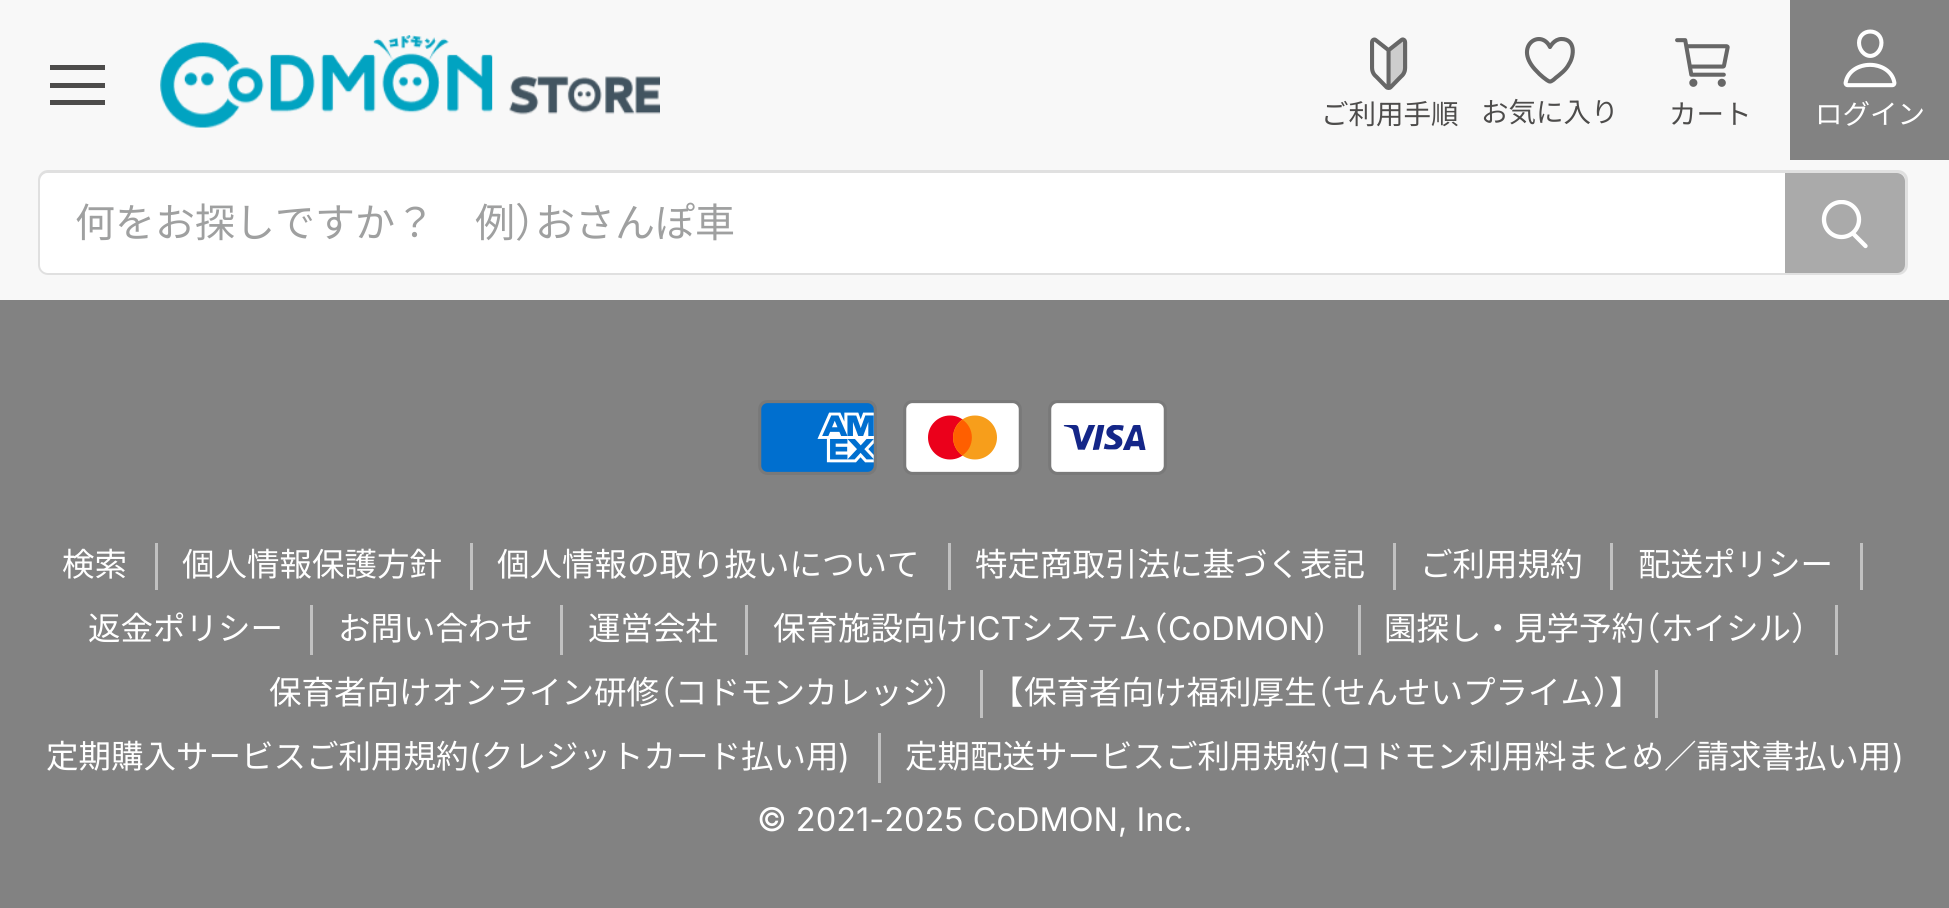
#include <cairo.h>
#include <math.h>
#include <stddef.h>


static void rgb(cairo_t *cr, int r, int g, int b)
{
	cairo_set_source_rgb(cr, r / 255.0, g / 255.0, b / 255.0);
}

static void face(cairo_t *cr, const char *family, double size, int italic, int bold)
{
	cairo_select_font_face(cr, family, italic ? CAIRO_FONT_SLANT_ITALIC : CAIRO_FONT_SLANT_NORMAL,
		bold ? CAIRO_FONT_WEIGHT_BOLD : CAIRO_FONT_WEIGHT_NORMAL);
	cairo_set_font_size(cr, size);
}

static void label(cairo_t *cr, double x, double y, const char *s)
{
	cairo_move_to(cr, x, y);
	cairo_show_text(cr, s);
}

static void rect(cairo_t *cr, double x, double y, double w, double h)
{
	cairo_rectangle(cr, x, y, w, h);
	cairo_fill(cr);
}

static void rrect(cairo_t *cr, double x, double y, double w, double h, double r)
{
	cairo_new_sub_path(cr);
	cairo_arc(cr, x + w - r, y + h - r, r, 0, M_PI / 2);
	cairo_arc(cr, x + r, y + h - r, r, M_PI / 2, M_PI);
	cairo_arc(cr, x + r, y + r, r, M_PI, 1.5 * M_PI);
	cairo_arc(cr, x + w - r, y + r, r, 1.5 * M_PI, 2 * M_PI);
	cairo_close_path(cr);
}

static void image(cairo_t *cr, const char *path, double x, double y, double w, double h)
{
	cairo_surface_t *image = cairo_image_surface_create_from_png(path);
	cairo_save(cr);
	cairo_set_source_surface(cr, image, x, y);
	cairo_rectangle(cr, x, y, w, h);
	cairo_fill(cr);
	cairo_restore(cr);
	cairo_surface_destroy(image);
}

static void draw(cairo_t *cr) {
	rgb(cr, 130, 130, 130);
	cairo_paint(cr);
	rgb(cr, 248, 248, 248);
	rect(cr, 0, 0, 1949, 300);
	rgb(cr, 77, 76, 75);
	rect(cr, 50, 65, 55, 5);
	rect(cr, 50, 83, 55, 5);
	rect(cr, 50, 100, 55, 5);
	image(cr, "image0.png", 1370, 37, 38, 53);
	face(cr, "Noto Sans JP", 27.5, 0, 0);
	label(cr, 1321, 124, "ご利用手順");
	cairo_new_path(cr);
	cairo_move_to(cr, 1561.5, 39);
	cairo_curve_to(cr, 1554, 39, 1550, 47, 1550, 47);
	cairo_curve_to(cr, 1540.5, 27.5, 1512, 47, 1537, 71.5);
	cairo_curve_to(cr, 1539, 74, 1546.5, 80.5, 1549.5, 81.5);
	cairo_curve_to(cr, 1551.5, 82, 1555, 78.5, 1555.5, 78);
	cairo_curve_to(cr, 1560.5, 74, 1566, 70, 1569, 64);
	cairo_curve_to(cr, 1574.5, 55.5, 1575.5, 39, 1561.5, 39);
	cairo_close_path(cr);
	rgb(cr, 103, 103, 103);
	cairo_set_line_width(cr, 4.1);
	cairo_set_line_cap(cr, CAIRO_LINE_CAP_ROUND);
	cairo_set_line_join(cr, CAIRO_LINE_JOIN_ROUND);
	cairo_stroke(cr);
	rgb(cr, 77, 76, 75);
	label(cr, 1481, 122, "お気に入り");
	image(cr, "image1.png", 1675, 38, 55, 49);
	label(cr, 1669, 124, "カート");
	rgb(cr, 130, 130, 130);
	rect(cr, 1790, 0, 159, 160);
	image(cr, "image2.png", 1843, 29, 54, 59);
	rgb(cr, 255, 255, 255);
	label(cr, 1815, 124, "ログイン");
	image(cr, "image3.png", 160, 35, 500, 93);
	rrect(cr, 39.5, 171.5, 1867, 102, 8.5);
	rgb(cr, 224, 224, 224);
	cairo_set_line_width(cr, 3);
	cairo_set_line_cap(cr, CAIRO_LINE_CAP_BUTT);
	cairo_set_line_join(cr, CAIRO_LINE_JOIN_MITER);
	cairo_stroke(cr);
	rgb(cr, 255, 255, 255);
	cairo_new_path(cr);
	cairo_move_to(cr, 48, 173);
	cairo_line_to(cr, 1785, 173);
	cairo_line_to(cr, 1785, 273);
	cairo_line_to(cr, 48, 273);
	cairo_curve_to(cr, 43.5, 273, 40, 269.5, 40, 265);
	cairo_line_to(cr, 40, 181);
	cairo_curve_to(cr, 40, 176.5, 43.5, 173, 48, 173);
	cairo_close_path(cr);
	cairo_fill(cr);
	face(cr, "Noto Sans JP", 40, 0, 0);
	rgb(cr, 159, 160, 160);
	label(cr, 75, 237, "何をお探しですか？　例");
	face(cr, "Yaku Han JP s", 40, 0, 0);
	label(cr, 515, 237, "）");
	face(cr, "Noto Sans JP", 40, 0, 0);
	label(cr, 535, 237, "おさんぽ車");
	rgb(cr, 170, 170, 170);
	cairo_new_path(cr);
	cairo_move_to(cr, 1786.5, 174.5);
	cairo_line_to(cr, 1897, 174.5);
	cairo_curve_to(cr, 1900.5, 174.5, 1903.5, 177.5, 1903.5, 181);
	cairo_line_to(cr, 1903.5, 265);
	cairo_curve_to(cr, 1903.5, 268.5, 1900.5, 271.5, 1897, 271.5);
	cairo_line_to(cr, 1786.5, 271.5);
	cairo_close_path(cr);
	cairo_fill_preserve(cr);
	cairo_stroke(cr);
	cairo_new_path(cr);
	cairo_move_to(cr, 1865.5, 246);
	cairo_line_to(cr, 1853.5, 234);
	rgb(cr, 255, 255, 255);
	cairo_set_line_width(cr, 4.3);
	cairo_set_line_cap(cr, CAIRO_LINE_CAP_ROUND);
	cairo_stroke(cr);
	cairo_save(cr);
	cairo_rectangle(cr, 1820, 200, 50, 53);
	cairo_clip(cr);
	cairo_arc(cr, 1841.5, 219.5, 17.5, 0, 2 * M_PI);
	cairo_set_line_cap(cr, CAIRO_LINE_CAP_BUTT);
	cairo_stroke(cr);
	cairo_restore(cr);
	image(cr, "image4.png", 758, 400, 119, 75);
	image(cr, "image5.png", 903, 400, 119, 75);
	image(cr, "image6.png", 1048, 400, 119, 75);
	rgb(cr, 193, 193, 193);
	rect(cr, 155, 543, 3, 47);
	face(cr, "Noto Sans JP", 32.5, 0, 0);
	rgb(cr, 255, 255, 255);
	label(cr, 62, 576, "検索");
	rgb(cr, 193, 193, 193);
	rect(cr, 470, 543, 3, 47);
	rgb(cr, 255, 255, 255);
	label(cr, 182, 576, "個人情報保護方針");
	rgb(cr, 193, 193, 193);
	rect(cr, 948, 543, 3, 47);
	rgb(cr, 255, 255, 255);
	label(cr, 497, 576, "個人情報の取り扱いについて");
	rgb(cr, 193, 193, 193);
	rect(cr, 1393, 543, 3, 47);
	rgb(cr, 255, 255, 255);
	label(cr, 975, 576, "特定商取引法に基づく表記");
	rgb(cr, 193, 193, 193);
	rect(cr, 1610, 543, 3, 47);
	rgb(cr, 255, 255, 255);
	label(cr, 1420, 576, "ご利用規約");
	rgb(cr, 193, 193, 193);
	rect(cr, 1860, 543, 3, 47);
	rgb(cr, 255, 255, 255);
	label(cr, 1638, 576, "配送ポリシー");
	rgb(cr, 193, 193, 193);
	rect(cr, 310, 605, 3, 50);
	rgb(cr, 255, 255, 255);
	label(cr, 88, 640, "返金ポリシー");
	rgb(cr, 193, 193, 193);
	rect(cr, 560, 605, 3, 50);
	rgb(cr, 255, 255, 255);
	label(cr, 338, 640, "お問い合わせ");
	rgb(cr, 193, 193, 193);
	rect(cr, 745, 605, 3, 50);
	rgb(cr, 255, 255, 255);
	label(cr, 588, 640, "運営会社");
	rgb(cr, 193, 193, 193);
	rect(cr, 1358, 605, 3, 50);
	rgb(cr, 255, 255, 255);
	label(cr, 773, 640, "保育施設向け");
	face(cr, "Inter", 32.5, 0, 0);
	label(cr, 968, 640, "ICT");
	face(cr, "Noto Sans JP", 32.5, 0, 0);
	label(cr, 1021, 640, "システム");
	face(cr, "Yaku Han JP s", 32.5, 0, 0);
	label(cr, 1151, 640, "（");
	face(cr, "Inter", 32.5, 0, 0);
	label(cr, 1168, 640, "CoDMON");
	face(cr, "Yaku Han JP s", 32.5, 0, 0);
	label(cr, 1313, 640, "）");
	rgb(cr, 193, 193, 193);
	rect(cr, 1835, 605, 3, 50);
	face(cr, "Noto Sans JP", 32.5, 0, 0);
	rgb(cr, 255, 255, 255);
	label(cr, 1384, 640, "園探し・見学予約");
	face(cr, "Yaku Han JP s", 32.5, 0, 0);
	label(cr, 1644, 640, "（");
	face(cr, "Noto Sans JP", 32.5, 0, 0);
	label(cr, 1661, 640, "ホイシル");
	face(cr, "Yaku Han JP s", 32.5, 0, 0);
	label(cr, 1791, 640, "）");
	rgb(cr, 193, 193, 193);
	rect(cr, 980, 670, 3, 48);
	face(cr, "Noto Sans JP", 32.5, 0, 0);
	rgb(cr, 255, 255, 255);
	label(cr, 269, 704, "保育者向けオンライン研修");
	face(cr, "Yaku Han JP s", 32.5, 0, 0);
	label(cr, 659, 704, "（");
	face(cr, "Noto Sans JP", 32.5, 0, 0);
	label(cr, 675, 704, "コドモンカレッジ");
	face(cr, "Yaku Han JP s", 32.5, 0, 0);
	label(cr, 935, 704, "）");
	rgb(cr, 193, 193, 193);
	rect(cr, 1655, 670, 3, 48);
	rgb(cr, 255, 255, 255);
	label(cr, 1006, 704, "【");
	face(cr, "Noto Sans JP", 32.5, 0, 0);
	label(cr, 1024, 704, "保育者向け福利厚生");
	face(cr, "Yaku Han JP s", 32.5, 0, 0);
	label(cr, 1316, 704, "（");
	face(cr, "Noto Sans JP", 32.5, 0, 0);
	label(cr, 1333, 704, "せんせいプライム");
	face(cr, "Yaku Han JP s", 32.5, 0, 0);
	label(cr, 1593, 704, "）】");
	rgb(cr, 193, 193, 193);
	rect(cr, 878, 733, 3, 50);
	face(cr, "Noto Sans JP", 32.5, 0, 0);
	rgb(cr, 255, 255, 255);
	label(cr, 46, 768, "定期購入サービスご利用規約");
	face(cr, "Inter", 32.5, 0, 0);
	label(cr, 469, 768, "(");
	face(cr, "Noto Sans JP", 32.5, 0, 0);
	label(cr, 481, 768, "クレジットカード払い用");
	face(cr, "Inter", 32.5, 0, 0);
	label(cr, 838, 768, ")");
	face(cr, "Noto Sans JP", 32.5, 0, 0);
	label(cr, 905, 768, "定期配送サービスご利用規約");
	face(cr, "Inter", 32.5, 0, 0);
	label(cr, 1328, 768, "(");
	face(cr, "Noto Sans JP", 32.5, 0, 0);
	label(cr, 1339, 768, "コドモン利用料まとめ／請求書払い用");
	face(cr, "Inter", 32.5, 0, 0);
	label(cr, 1892, 768, ")");
	label(cr, 757, 831, "© 2021-2025 CoDMON, Inc.");
}

int main(void) {
	cairo_surface_t *surface = cairo_image_surface_create(CAIRO_FORMAT_RGB24, 1949, 908);
	cairo_t *cr = cairo_create(surface);
	cairo_font_options_t *options = cairo_font_options_create();
	cairo_font_options_set_hint_metrics(options, CAIRO_HINT_METRICS_OFF);
	cairo_font_options_set_hint_style(options, CAIRO_HINT_STYLE_NONE);
	cairo_set_font_options(cr, options);
	cairo_set_miter_limit(cr, 4);
	draw(cr);
	cairo_surface_write_to_png(surface, "render.png");
	cairo_font_options_destroy(options);
	cairo_destroy(cr);
	cairo_surface_destroy(surface);
	return 0;
}
